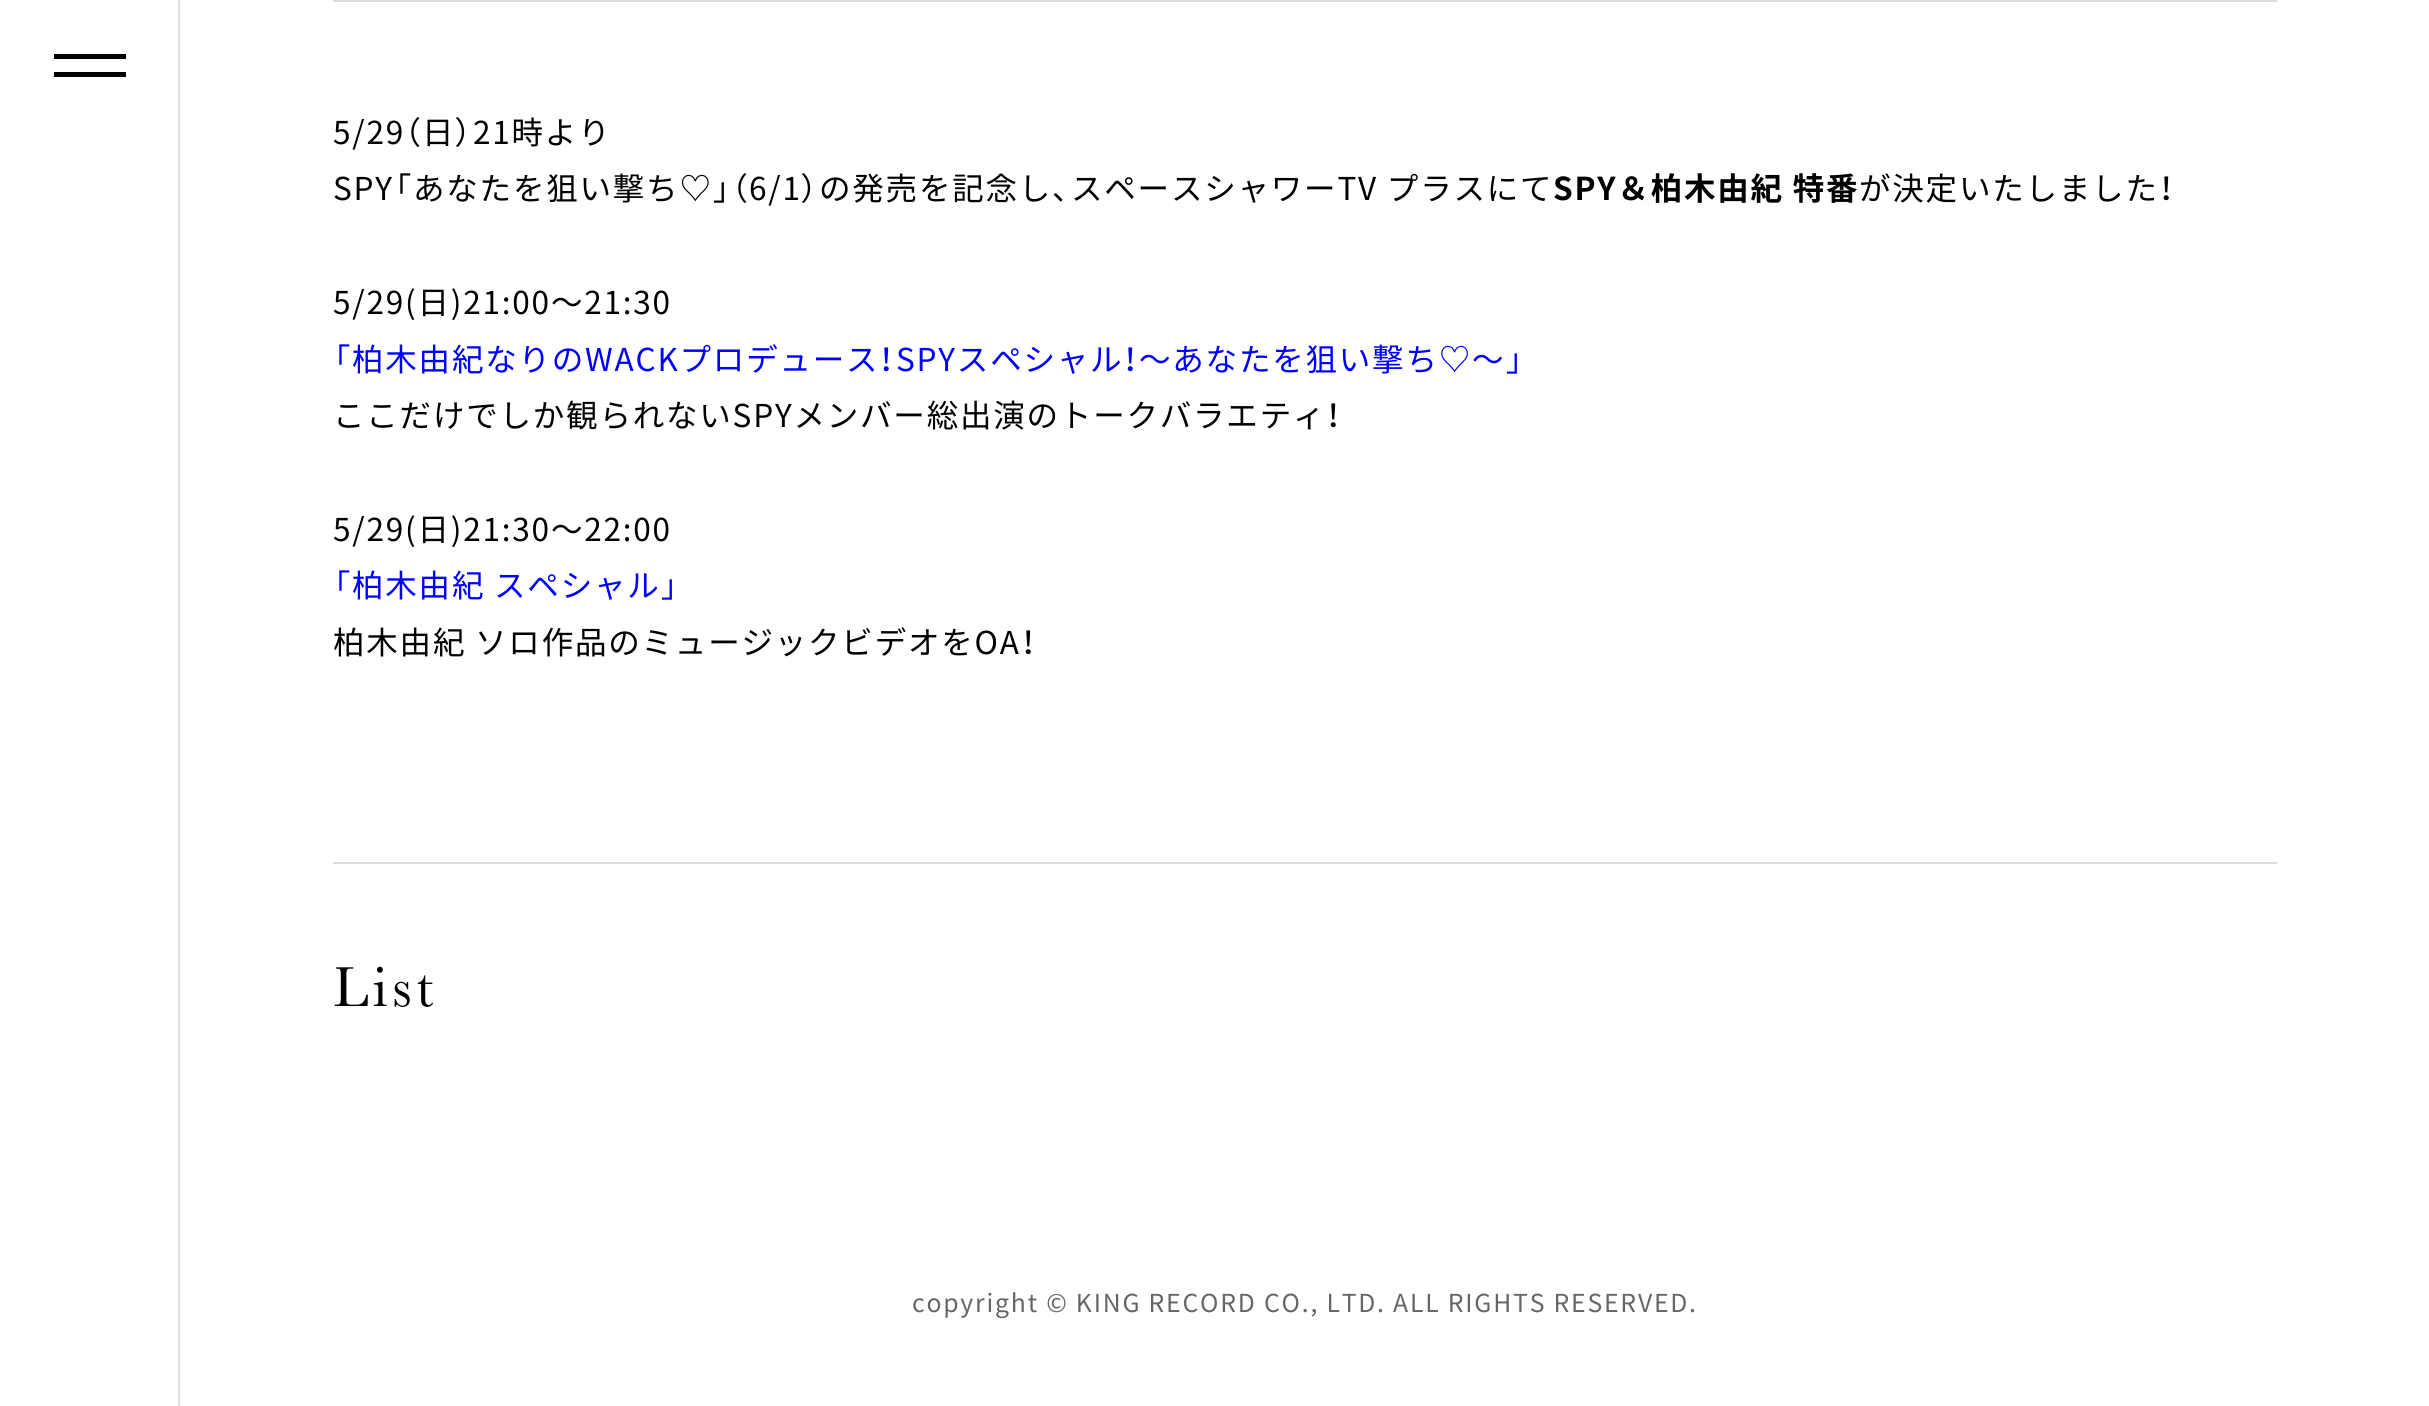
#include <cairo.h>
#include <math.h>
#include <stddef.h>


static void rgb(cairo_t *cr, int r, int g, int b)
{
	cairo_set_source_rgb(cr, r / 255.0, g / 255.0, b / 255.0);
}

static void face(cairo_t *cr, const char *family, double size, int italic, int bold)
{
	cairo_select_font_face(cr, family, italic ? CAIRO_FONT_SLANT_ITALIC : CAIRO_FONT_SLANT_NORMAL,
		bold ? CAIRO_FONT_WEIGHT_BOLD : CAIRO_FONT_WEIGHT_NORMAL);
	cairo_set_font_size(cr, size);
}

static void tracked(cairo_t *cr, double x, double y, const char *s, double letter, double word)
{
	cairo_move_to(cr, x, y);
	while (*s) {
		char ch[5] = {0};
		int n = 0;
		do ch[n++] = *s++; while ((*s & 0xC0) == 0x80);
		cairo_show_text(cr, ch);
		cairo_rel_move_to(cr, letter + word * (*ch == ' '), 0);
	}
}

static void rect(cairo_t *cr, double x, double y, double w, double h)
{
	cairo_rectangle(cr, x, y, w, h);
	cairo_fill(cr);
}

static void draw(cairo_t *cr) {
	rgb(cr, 255, 255, 255);
	cairo_paint(cr);
	rgb(cr, 0, 0, 0);
	rect(cr, 54, 54, 72, 5);
	rect(cr, 54, 72, 72, 5);
	rgb(cr, 221, 221, 221);
	rect(cr, 178, 0, 2, 1406);
	rect(cr, 333, 862, 1944, 2);
	rect(cr, 333, 0, 1944, 2);
	face(cr, "Noto Sans JP", 31.5, 0, 0);
	rgb(cr, 0, 0, 0);
	tracked(cr, 333, 144, "5/29", 1.8, 0);
	face(cr, "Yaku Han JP", 31.5, 0, 0);
	tracked(cr, 405, 144, "（", 1.8, 0);
	face(cr, "Noto Sans JP", 31.5, 0, 0);
	tracked(cr, 422, 144, "日", 1.8, 0);
	face(cr, "Yaku Han JP", 31.5, 0, 0);
	tracked(cr, 455, 144, "）", 1.8, 0);
	face(cr, "Noto Sans JP", 31.5, 0, 0);
	tracked(cr, 473, 144, "21時より", 1.8, 0);
	tracked(cr, 333, 200, "SPY", 1.8, 0);
	face(cr, "Yaku Han JP", 31.5, 0, 0);
	tracked(cr, 394, 200, "「", 1.8, 0);
	face(cr, "Noto Sans JP", 31.5, 0, 0);
	tracked(cr, 413, 200, "あなたを狙い撃ち♡", 1.8, 0);
	face(cr, "Yaku Han JP", 31.5, 0, 0);
	tracked(cr, 713, 200, "」（", 1.8, 0);
	face(cr, "Noto Sans JP", 31.5, 0, 0);
	tracked(cr, 749, 200, "6/1", 1.8, 0);
	face(cr, "Yaku Han JP", 31.5, 0, 0);
	tracked(cr, 801, 200, "）", 1.8, 0);
	face(cr, "Noto Sans JP", 31.5, 0, 0);
	tracked(cr, 819, 200, "の発売を記念し", 1.8, 0);
	face(cr, "Yaku Han JP", 31.5, 0, 0);
	tracked(cr, 1052, 200, "、", 1.8, 0);
	face(cr, "Noto Sans JP", 31.5, 0, 0);
	tracked(cr, 1071, 200, "スペースシャワーTV プラスにて", 1.8, 0);
	face(cr, "Noto Sans JP", 31.5, 0, 1);
	tracked(cr, 1553, 200, "SPY＆柏木由紀 特番", 1.8, 0);
	face(cr, "Noto Sans JP", 31.5, 0, 0);
	tracked(cr, 1859, 200, "が決定いたしました", 1.8, 0);
	face(cr, "Yaku Han JP", 31.5, 0, 0);
	tracked(cr, 2159, 200, "！", 1.8, 0);
	face(cr, "Noto Sans JP", 31.5, 0, 0);
	tracked(cr, 333, 314, "5/29(日)21:00～21:30", 1.8, 0);
	face(cr, "Yaku Han JP", 31.5, 0, 0);
	rgb(cr, 0, 0, 255);
	tracked(cr, 333, 371, "「", 1.8, 0);
	face(cr, "Noto Sans JP", 31.5, 0, 0);
	tracked(cr, 352, 371, "柏木由紀なりのWACKプロデュース", 1.8, 0);
	face(cr, "Yaku Han JP", 31.5, 0, 0);
	tracked(cr, 879, 371, "！", 1.8, 0);
	face(cr, "Noto Sans JP", 31.5, 0, 0);
	tracked(cr, 896, 371, "SPYスペシャル", 1.8, 0);
	face(cr, "Yaku Han JP", 31.5, 0, 0);
	tracked(cr, 1123, 371, "！", 1.8, 0);
	face(cr, "Noto Sans JP", 31.5, 0, 0);
	tracked(cr, 1139, 371, "〜あなたを狙い撃ち♡〜", 1.8, 0);
	face(cr, "Yaku Han JP", 31.5, 0, 0);
	tracked(cr, 1506, 371, "」", 1.8, 0);
	face(cr, "Noto Sans JP", 31.5, 0, 0);
	rgb(cr, 0, 0, 0);
	tracked(cr, 333, 427, "ここだけでしか観られないSPYメンバー総出演のトークバラエティ", 1.8, 0);
	face(cr, "Yaku Han JP", 31.5, 0, 0);
	tracked(cr, 1326, 427, "！", 1.8, 0);
	face(cr, "Noto Sans JP", 31.5, 0, 0);
	tracked(cr, 333, 541, "5/29(日)21:30～22:00", 1.8, 0);
	face(cr, "Yaku Han JP", 31.5, 0, 0);
	rgb(cr, 0, 0, 255);
	tracked(cr, 333, 597, "「", 1.8, 0);
	face(cr, "Noto Sans JP", 31.5, 0, 0);
	tracked(cr, 352, 597, "柏木由紀 スペシャル", 1.8, 0);
	face(cr, "Yaku Han JP", 31.5, 0, 0);
	tracked(cr, 661, 597, "」", 1.8, 0);
	face(cr, "Noto Sans JP", 31.5, 0, 0);
	rgb(cr, 0, 0, 0);
	tracked(cr, 333, 654, "柏木由紀 ソロ作品のミュージックビデオをOA", 1.8, 0);
	face(cr, "Yaku Han JP", 31.5, 0, 0);
	tracked(cr, 1021, 654, "！", 1.8, 0);
	cairo_save(cr);
	cairo_new_path(cr);
	cairo_move_to(cr, 386, 920);
	cairo_curve_to(cr, 415, 920, 439, 952.5, 439, 992);
	cairo_curve_to(cr, 439, 1032, 415, 1064, 386, 1064);
	cairo_curve_to(cr, 356.5, 1064, 333, 1032, 333, 992);
	cairo_curve_to(cr, 333, 952.5, 356.5, 920, 386, 920);
	cairo_close_path(cr);
	cairo_clip(cr);
	face(cr, "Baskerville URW", 58, 0, 0);
	tracked(cr, 333, 1006, "List", 4.5, 0);
	cairo_restore(cr);
	face(cr, "Noto Sans JP", 24.75, 0, 0);
	rgb(cr, 102, 102, 102);
	tracked(cr, 912, 1312, "copyright © KING RECORD CO., LTD. ALL RIGHTS RESERVED.", 1.8, 0);
}

int main(void) {
	cairo_surface_t *surface = cairo_image_surface_create(CAIRO_FORMAT_RGB24, 2429, 1406);
	cairo_t *cr = cairo_create(surface);
	cairo_font_options_t *options = cairo_font_options_create();
	cairo_font_options_set_hint_metrics(options, CAIRO_HINT_METRICS_OFF);
	cairo_font_options_set_hint_style(options, CAIRO_HINT_STYLE_NONE);
	cairo_set_font_options(cr, options);
	cairo_set_miter_limit(cr, 4);
	draw(cr);
	cairo_surface_write_to_png(surface, "render.png");
	cairo_font_options_destroy(options);
	cairo_destroy(cr);
	cairo_surface_destroy(surface);
	return 0;
}
